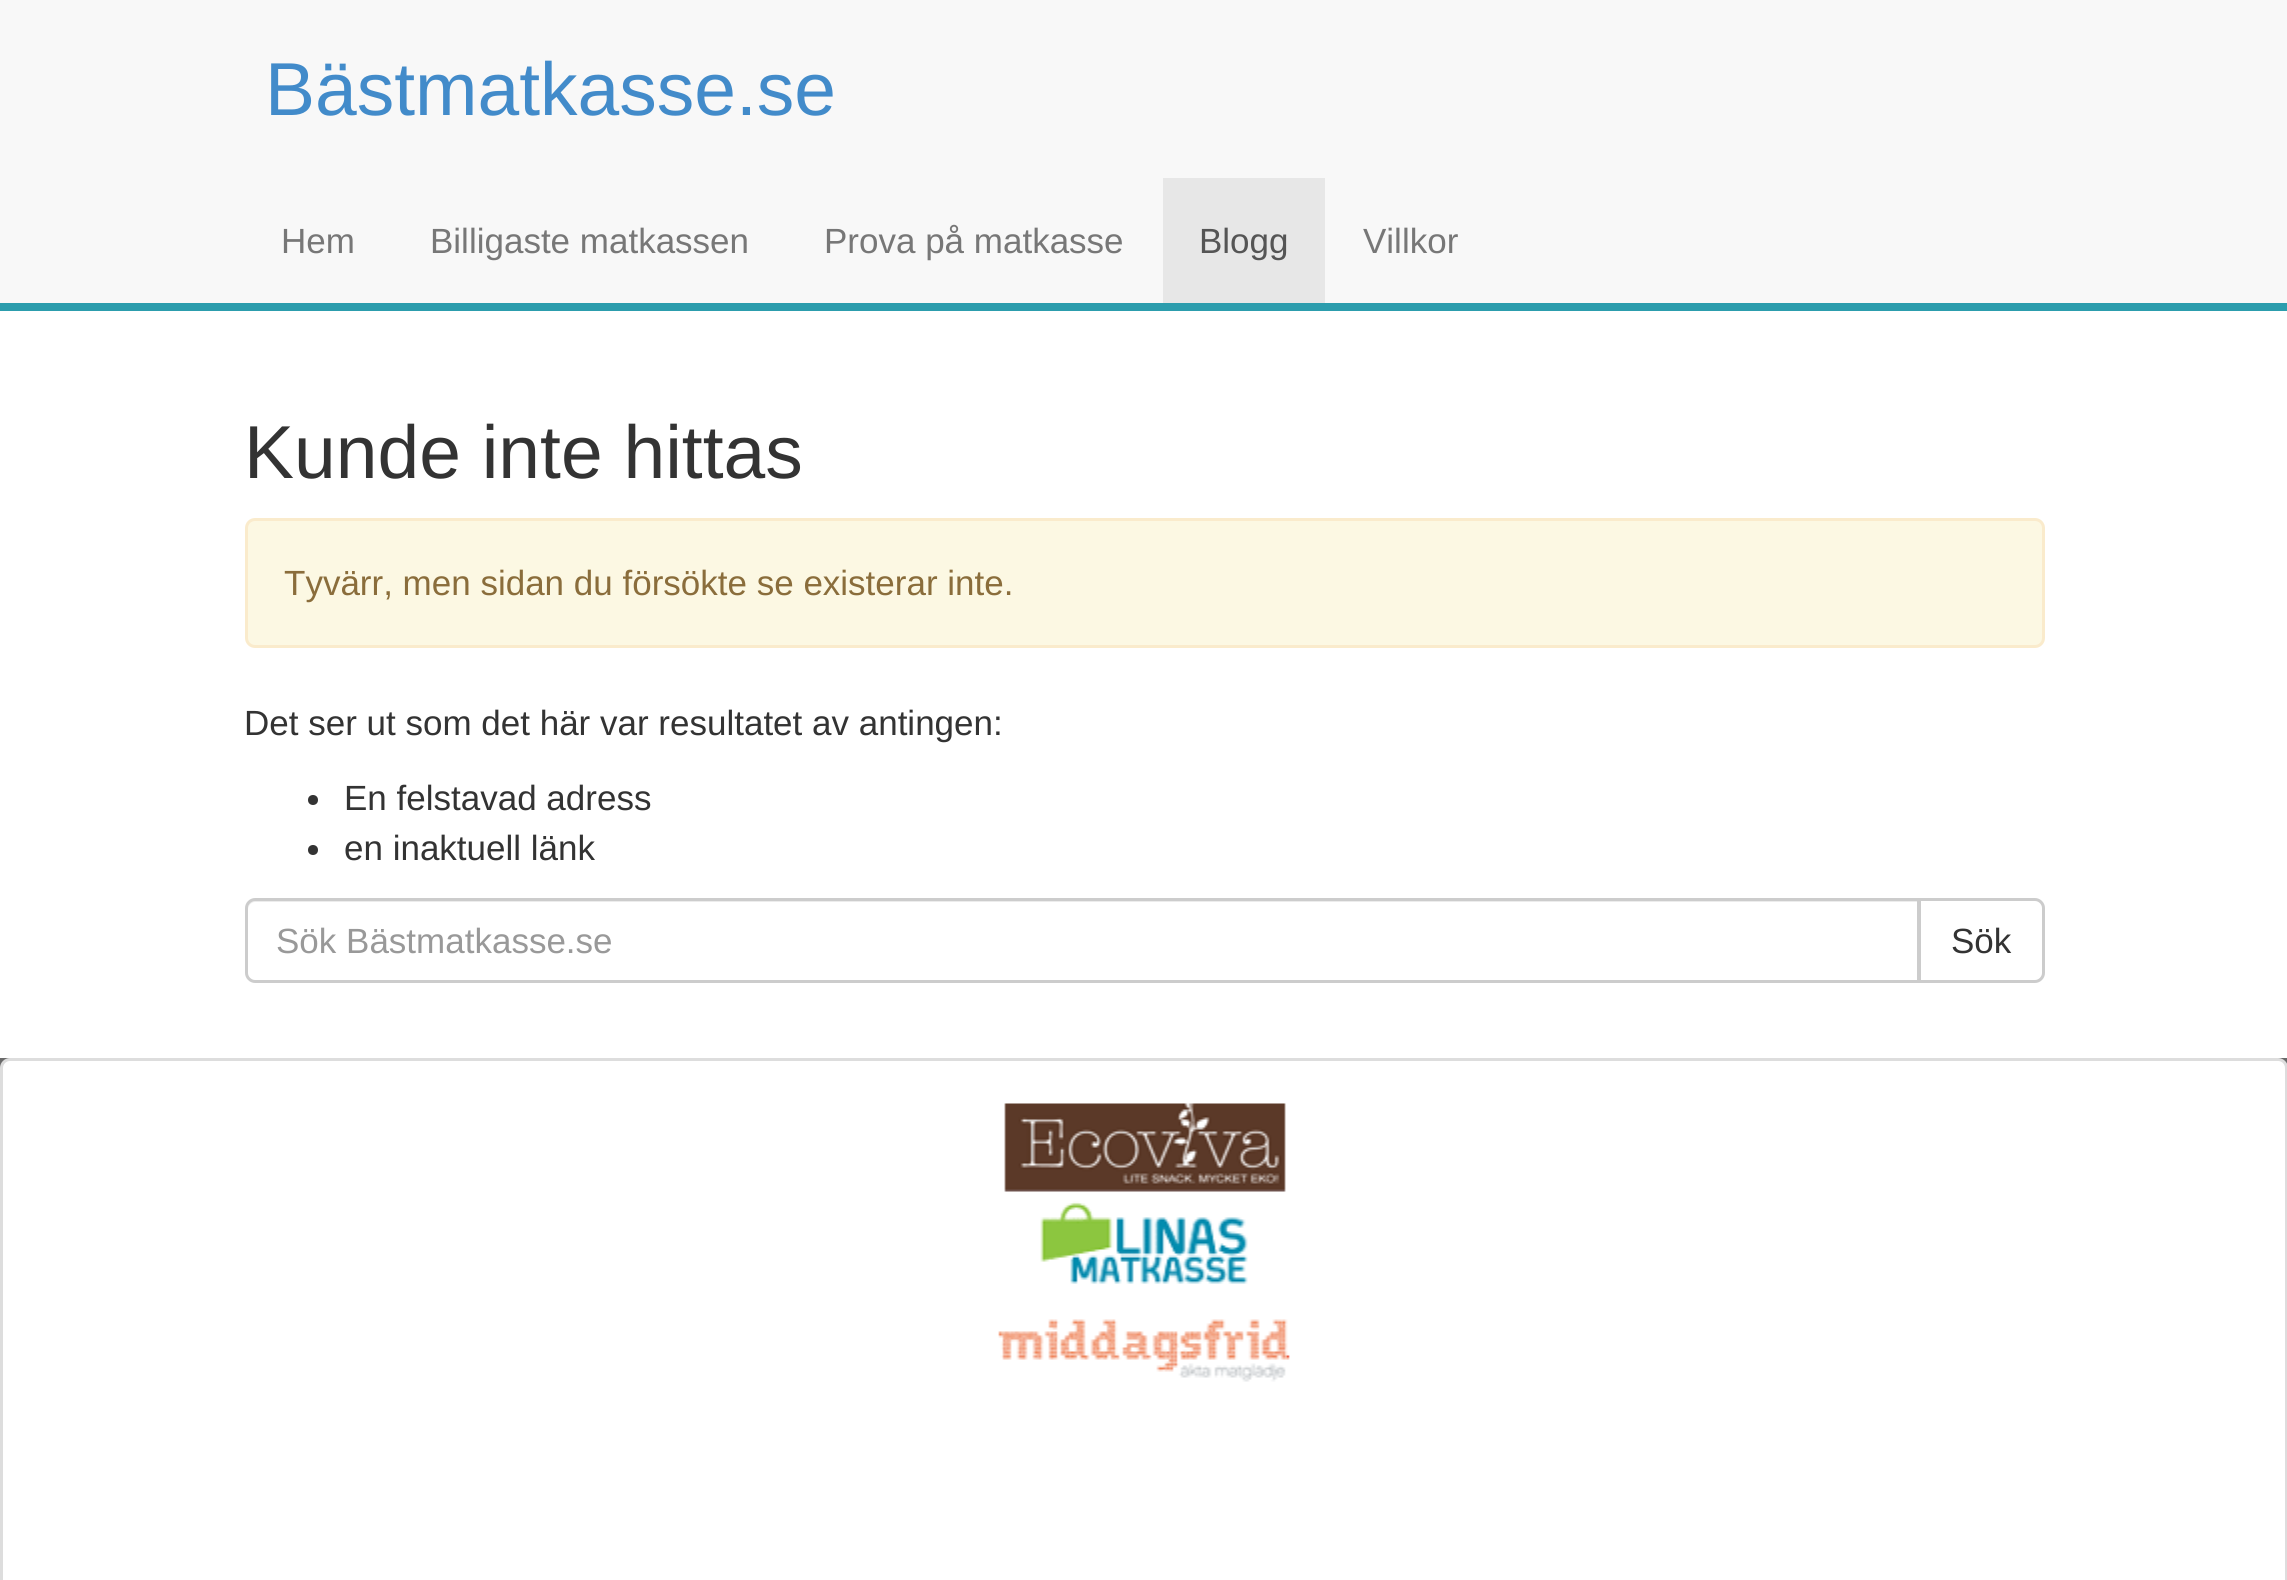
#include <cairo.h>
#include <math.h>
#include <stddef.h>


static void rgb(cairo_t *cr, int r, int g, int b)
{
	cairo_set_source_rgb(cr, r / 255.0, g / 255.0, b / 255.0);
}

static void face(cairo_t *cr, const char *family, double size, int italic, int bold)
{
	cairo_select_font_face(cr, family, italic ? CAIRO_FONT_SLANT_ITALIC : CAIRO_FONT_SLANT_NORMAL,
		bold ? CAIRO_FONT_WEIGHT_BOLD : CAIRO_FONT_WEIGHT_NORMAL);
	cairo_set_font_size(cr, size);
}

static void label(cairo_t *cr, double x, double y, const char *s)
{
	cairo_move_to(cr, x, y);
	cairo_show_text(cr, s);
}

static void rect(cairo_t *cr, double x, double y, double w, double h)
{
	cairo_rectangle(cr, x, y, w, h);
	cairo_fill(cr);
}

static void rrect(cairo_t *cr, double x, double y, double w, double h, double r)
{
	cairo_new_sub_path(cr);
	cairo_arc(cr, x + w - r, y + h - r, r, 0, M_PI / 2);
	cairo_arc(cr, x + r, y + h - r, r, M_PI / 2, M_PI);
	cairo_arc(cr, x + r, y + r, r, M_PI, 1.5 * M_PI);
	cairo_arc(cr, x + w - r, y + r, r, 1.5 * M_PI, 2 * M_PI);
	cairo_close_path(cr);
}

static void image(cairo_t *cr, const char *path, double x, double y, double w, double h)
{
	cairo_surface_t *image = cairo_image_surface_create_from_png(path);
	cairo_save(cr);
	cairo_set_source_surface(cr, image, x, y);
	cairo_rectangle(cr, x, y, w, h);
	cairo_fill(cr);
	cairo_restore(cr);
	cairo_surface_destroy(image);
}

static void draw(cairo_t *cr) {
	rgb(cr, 255, 255, 255);
	cairo_paint(cr);
	rgb(cr, 248, 248, 248);
	rect(cr, 0, 0, 2287, 303);
	rgb(cr, 44, 157, 173);
	rect(cr, 0, 303, 2287, 8);
	face(cr, "Liberation Sans", 75, 0, 0);
	rgb(cr, 66, 139, 202);
	label(cr, 265, 115, "Bästmatkasse.se");
	face(cr, "Liberation Sans", 35, 0, 0);
	rgb(cr, 119, 119, 119);
	label(cr, 281, 253, "Hem");
	label(cr, 430, 253, "Billigaste matkassen");
	label(cr, 824, 253, "Prova på matkasse");
	rgb(cr, 231, 231, 231);
	rect(cr, 1163, 178, 162, 125);
	rgb(cr, 85, 85, 85);
	label(cr, 1199, 253, "Blogg");
	rgb(cr, 119, 119, 119);
	label(cr, 1363, 253, "Villkor");
	face(cr, "Liberation Sans", 75, 0, 0);
	rgb(cr, 51, 51, 51);
	label(cr, 244, 478, "Kunde inte hittas");
	rgb(cr, 252, 248, 227);
	rrect(cr, 246.5, 519.5, 1797, 127, 8.5);
	cairo_fill_preserve(cr);
	rgb(cr, 250, 235, 204);
	cairo_set_line_width(cr, 3);
	cairo_stroke(cr);
	face(cr, "Liberation Sans", 35, 0, 0);
	rgb(cr, 138, 109, 59);
	label(cr, 284, 595, "Tyvärr, men sidan du försökte se existerar inte.");
	rgb(cr, 51, 51, 51);
	label(cr, 244, 735, "Det ser ut som det här var resultatet av antingen:");
	cairo_new_path(cr);
	cairo_arc(cr, 313, 800, 5, 0, 2 * M_PI);
	cairo_fill(cr);
	label(cr, 344, 810, "En felstavad adress");
	cairo_new_path(cr);
	cairo_arc(cr, 313, 850, 5, 0, 2 * M_PI);
	cairo_fill(cr);
	label(cr, 344, 860, "en inaktuell länk");
	cairo_new_path(cr);
	cairo_move_to(cr, 1919.5, 899.5);
	cairo_line_to(cr, 2035, 899.5);
	cairo_curve_to(cr, 2039.5, 899.5, 2043.5, 903.5, 2043.5, 908);
	cairo_line_to(cr, 2043.5, 973);
	cairo_curve_to(cr, 2043.5, 977.5, 2039.5, 981.5, 2035, 981.5);
	cairo_line_to(cr, 1919.5, 981.5);
	cairo_close_path(cr);
	rgb(cr, 204, 204, 204);
	cairo_stroke(cr);
	rgb(cr, 255, 255, 255);
	cairo_new_path(cr);
	cairo_move_to(cr, 255, 898);
	cairo_line_to(cr, 1920, 898);
	cairo_line_to(cr, 1920, 983);
	cairo_line_to(cr, 255, 983);
	cairo_curve_to(cr, 249.5, 983, 245, 978.5, 245, 973);
	cairo_line_to(cr, 245, 908);
	cairo_curve_to(cr, 245, 902.5, 249.5, 898, 255, 898);
	cairo_close_path(cr);
	cairo_fill(cr);
	rgb(cr, 236, 236, 236);
	cairo_new_path(cr);
	cairo_move_to(cr, 255, 902);
	cairo_line_to(cr, 1918, 902);
	cairo_line_to(cr, 1918, 900);
	cairo_line_to(cr, 256, 900);
	cairo_curve_to(cr, 250, 900, 248, 905, 248, 910);
	cairo_curve_to(cr, 248, 906, 251, 902, 255, 902);
	cairo_close_path(cr);
	cairo_fill(cr);
	cairo_new_path(cr);
	cairo_move_to(cr, 255, 899.5);
	cairo_line_to(cr, 1918.5, 899.5);
	cairo_line_to(cr, 1918.5, 981.5);
	cairo_line_to(cr, 255, 981.5);
	cairo_curve_to(cr, 250.5, 981.5, 246.5, 977.5, 246.5, 973);
	cairo_line_to(cr, 246.5, 908);
	cairo_curve_to(cr, 246.5, 903.5, 250.5, 899.5, 255, 899.5);
	cairo_close_path(cr);
	rgb(cr, 204, 204, 204);
	cairo_stroke(cr);
	rgb(cr, 153, 153, 153);
	label(cr, 276, 953, "Sök Bästmatkasse.se");
	rgb(cr, 51, 51, 51);
	label(cr, 1951, 953, "Sök");
	rgb(cr, 106, 106, 106);
	rect(cr, 0, 1058, 2287, 10);
	rgb(cr, 255, 255, 255);
	rrect(cr, 1.5, 1059.5, 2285, 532, 8.5);
	cairo_fill_preserve(cr);
	rgb(cr, 221, 221, 221);
	cairo_stroke(cr);
	image(cr, "image0.png", 1004, 1103, 282, 89);
	image(cr, "image1.png", 1040, 1201, 208, 83);
	image(cr, "image2.png", 998, 1319, 292, 63);
}

int main(void) {
	cairo_surface_t *surface = cairo_image_surface_create(CAIRO_FORMAT_RGB24, 2287, 1580);
	cairo_t *cr = cairo_create(surface);
	cairo_font_options_t *options = cairo_font_options_create();
	cairo_font_options_set_hint_metrics(options, CAIRO_HINT_METRICS_OFF);
	cairo_font_options_set_hint_style(options, CAIRO_HINT_STYLE_NONE);
	cairo_set_font_options(cr, options);
	cairo_set_miter_limit(cr, 4);
	draw(cr);
	cairo_surface_write_to_png(surface, "render.png");
	cairo_font_options_destroy(options);
	cairo_destroy(cr);
	cairo_surface_destroy(surface);
	return 0;
}
